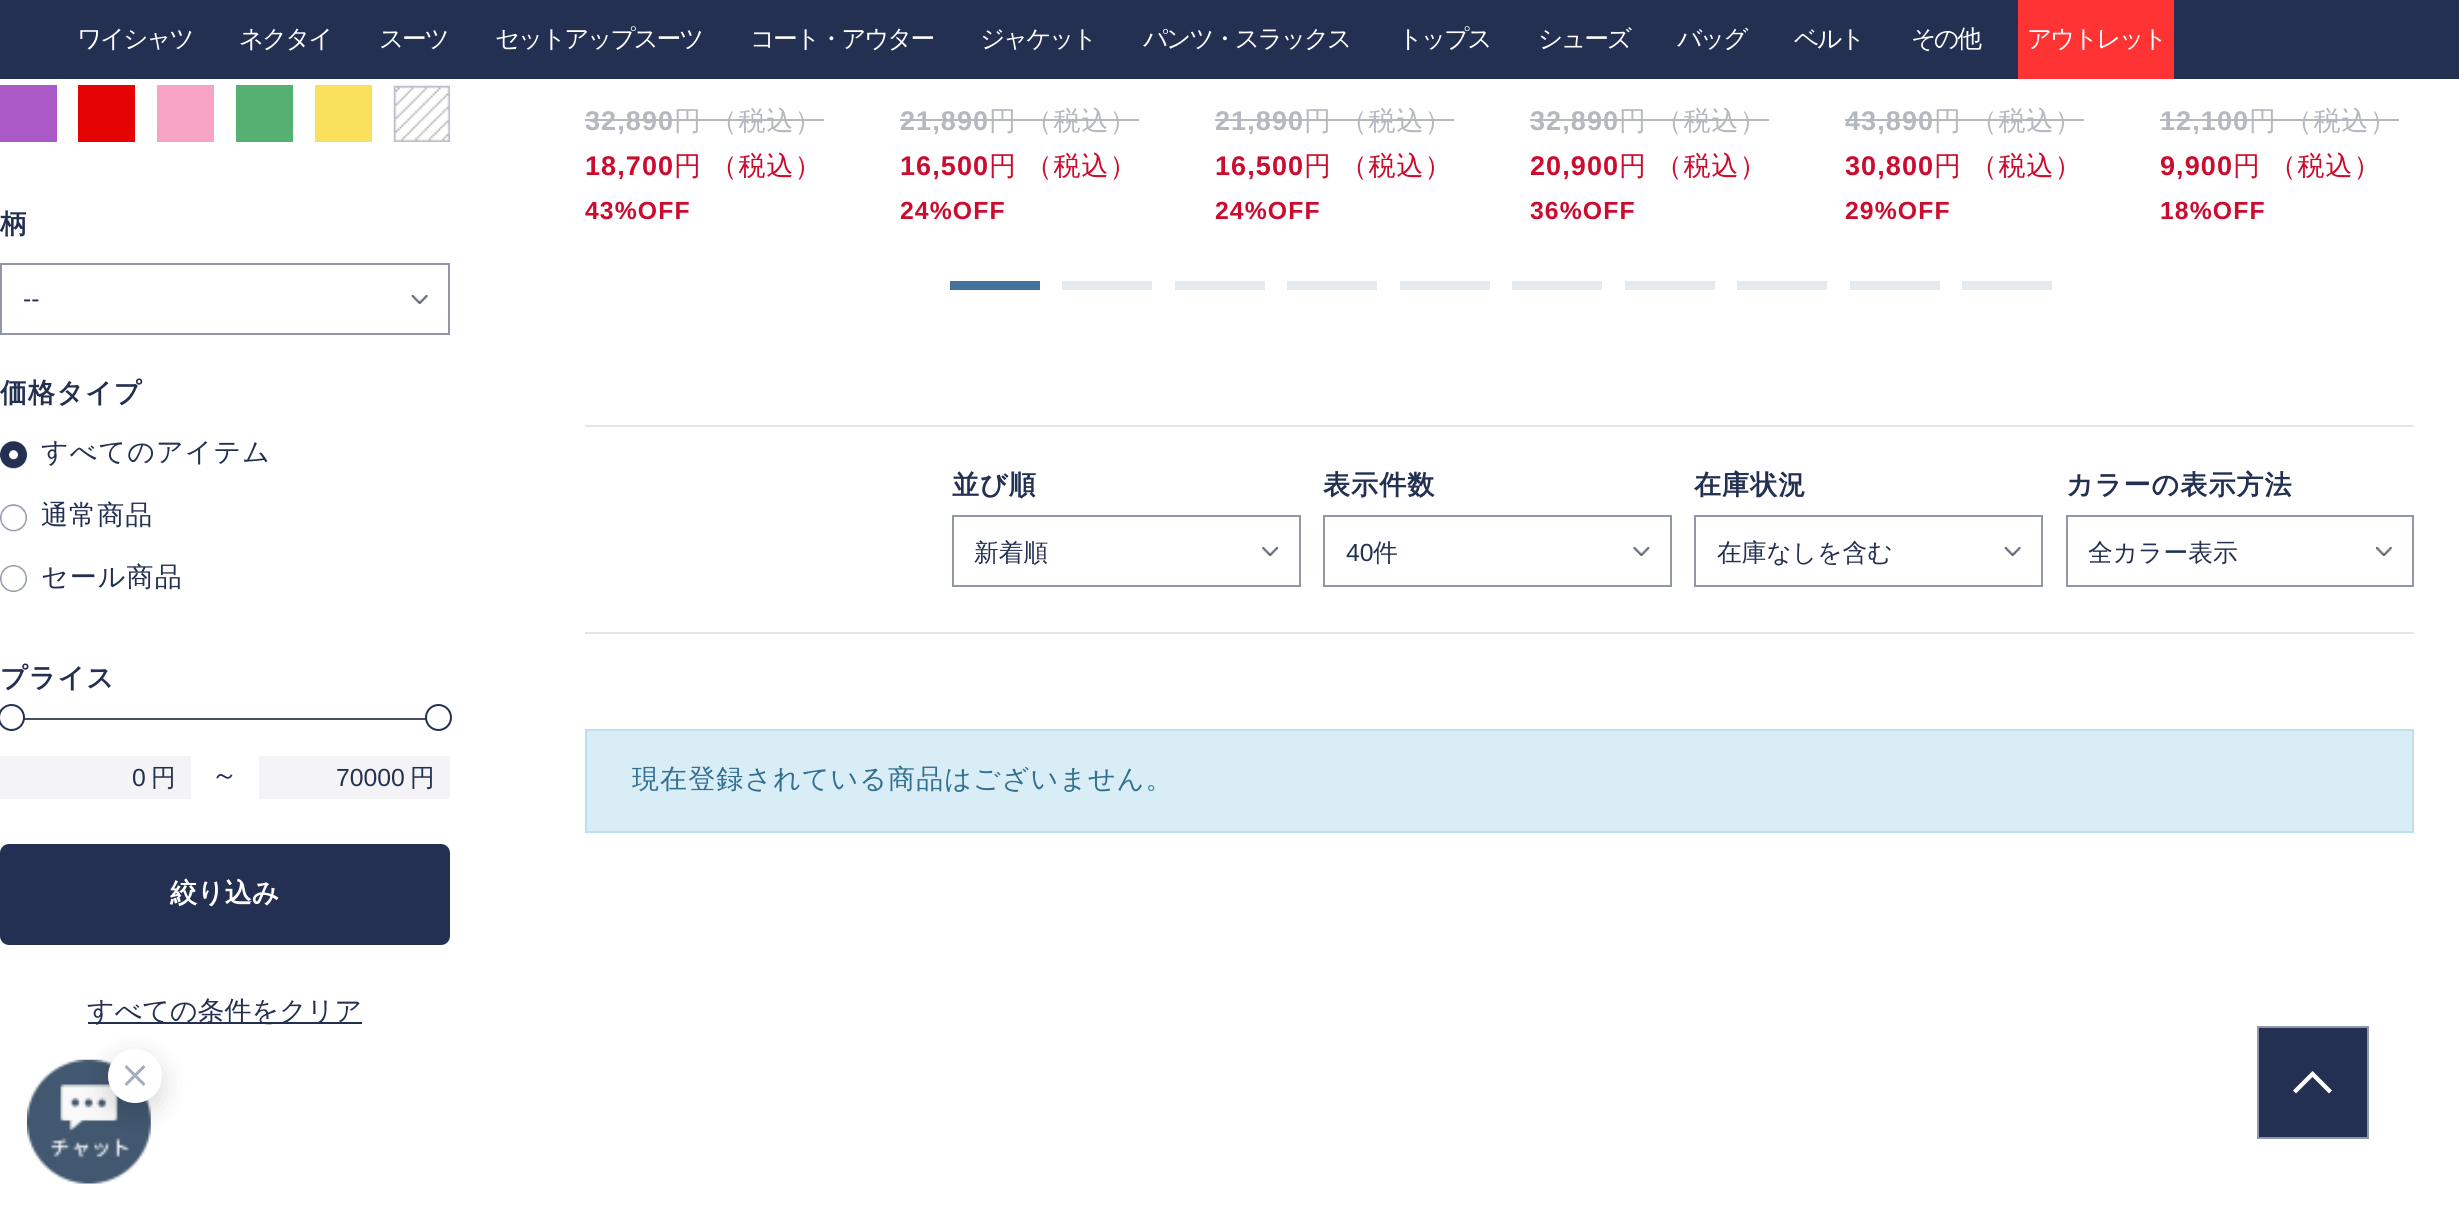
#include <cairo.h>
#include <math.h>
#include <stddef.h>


static void rgb(cairo_t *cr, int r, int g, int b)
{
	cairo_set_source_rgb(cr, r / 255.0, g / 255.0, b / 255.0);
}

static void face(cairo_t *cr, const char *family, double size, int italic, int bold)
{
	cairo_select_font_face(cr, family, italic ? CAIRO_FONT_SLANT_ITALIC : CAIRO_FONT_SLANT_NORMAL,
		bold ? CAIRO_FONT_WEIGHT_BOLD : CAIRO_FONT_WEIGHT_NORMAL);
	cairo_set_font_size(cr, size);
}

static void label(cairo_t *cr, double x, double y, const char *s)
{
	cairo_move_to(cr, x, y);
	cairo_show_text(cr, s);
}

static void tracked(cairo_t *cr, double x, double y, const char *s, double letter, double word)
{
	cairo_move_to(cr, x, y);
	while (*s) {
		char ch[5] = {0};
		int n = 0;
		do ch[n++] = *s++; while ((*s & 0xC0) == 0x80);
		cairo_show_text(cr, ch);
		cairo_rel_move_to(cr, letter + word * (*ch == ' '), 0);
	}
}

static void rect(cairo_t *cr, double x, double y, double w, double h)
{
	cairo_rectangle(cr, x, y, w, h);
	cairo_fill(cr);
}

static void rrect(cairo_t *cr, double x, double y, double w, double h, double r)
{
	cairo_new_sub_path(cr);
	cairo_arc(cr, x + w - r, y + h - r, r, 0, M_PI / 2);
	cairo_arc(cr, x + r, y + h - r, r, M_PI / 2, M_PI);
	cairo_arc(cr, x + r, y + r, r, M_PI, 1.5 * M_PI);
	cairo_arc(cr, x + w - r, y + r, r, 1.5 * M_PI, 2 * M_PI);
	cairo_close_path(cr);
}

static void soft_shadow(cairo_t *cr, double x, double y, double w, double h, double r, double blur, double alpha)
{
	cairo_push_group_with_content(cr, CAIRO_CONTENT_ALPHA);
	cairo_set_operator(cr, CAIRO_OPERATOR_SOURCE);
	for (int i = 15; i >= -15 && fmin(w, h) + blur * i / 3 > 0; i -= 2) {
		double e = blur * i / 6;
		cairo_set_source_rgba(cr, 0, 0, 0, alpha * erfc((i - 1) / 8.5) / 2);
		rrect(cr, x - e, y - e, w + 2 * e, h + 2 * e, fmax(0, fmin(r + e + blur * .6, fmin(w, h) / 2 + e)));
		cairo_fill(cr);
	}
	cairo_pattern_t *soft = cairo_pop_group(cr);
	cairo_mask(cr, soft);
	cairo_pattern_destroy(soft);
}

static void image(cairo_t *cr, const char *path, double x, double y, double w, double h)
{
	cairo_surface_t *image = cairo_image_surface_create_from_png(path);
	cairo_save(cr);
	cairo_set_source_surface(cr, image, x, y);
	cairo_rectangle(cr, x, y, w, h);
	cairo_fill(cr);
	cairo_restore(cr);
	cairo_surface_destroy(image);
}

static void draw(cairo_t *cr) {
	rgb(cr, 255, 255, 255);
	cairo_paint(cr);
	rgb(cr, 35, 48, 82);
	rect(cr, 0, 0, 2459, 79);
	face(cr, "WenQuanYi Zen Hei Medium", 24.75, 0, 0);
	rgb(cr, 255, 255, 255);
	tracked(cr, 77, 47, "ワイシャツ", -2.25, 0);
	tracked(cr, 239, 47, "ネクタイ", -2.25, 0);
	tracked(cr, 379, 47, "スーツ", -2.25, 0);
	tracked(cr, 495, 47, "セットアップスーツ", -2.25, 0);
	tracked(cr, 750, 47, "コート・アウター", -2.25, 0);
	tracked(cr, 980, 47, "ジャケット", -2.25, 0);
	tracked(cr, 1143, 47, "パンツ・スラックス", -2.25, 0);
	tracked(cr, 1398, 47, "トップス", -2.25, 0);
	tracked(cr, 1538, 47, "シューズ", -2.25, 0);
	tracked(cr, 1677, 47, "バッグ", -2.25, 0);
	tracked(cr, 1794, 47, "ベルト", -2.25, 0);
	tracked(cr, 1911, 47, "その他", -2.25, 0);
	rgb(cr, 255, 51, 51);
	rect(cr, 2018, 0, 156, 79);
	rgb(cr, 255, 255, 255);
	tracked(cr, 2027, 47, "アウトレット", -2.25, 0);
	rgb(cr, 170, 89, 198);
	rect(cr, 0, 85, 57, 57);
	rgb(cr, 230, 3, 4);
	rect(cr, 78, 85, 57, 57);
	rgb(cr, 247, 163, 197);
	rect(cr, 157, 85, 57, 57);
	rgb(cr, 84, 177, 114);
	rect(cr, 236, 85, 57, 57);
	rgb(cr, 250, 225, 93);
	rect(cr, 315, 85, 57, 57);
	image(cr, "image0.png", 393, 85, 57, 57);
	face(cr, "WenQuanYi Zen Hei", 27, 0, 1);
	rgb(cr, 35, 48, 82);
	tracked(cr, 0, 233, "柄", 1.1, 0);
	image(cr, "image1.png", 411, 295, 17, 9);
	cairo_rectangle(cr, 1, 264, 448, 70);
	rgb(cr, 145, 151, 168);
	cairo_stroke(cr);
	face(cr, "Liberation Sans", 24.75, 0, 0);
	rgb(cr, 35, 48, 82);
	label(cr, 23, 307, "--");
	face(cr, "WenQuanYi Zen Hei", 27, 0, 1);
	tracked(cr, 0, 402, "価格タイプ", 1.1, 0);
	image(cr, "image2.png", 0, 441, 27, 28);
	face(cr, "WenQuanYi Zen Hei Medium", 27, 0, 0);
	tracked(cr, 41, 461, "すべてのアイテム", 1.1, 0);
	image(cr, "image3.png", 0, 504, 27, 28);
	tracked(cr, 41, 524, "通常商品", 1.1, 0);
	image(cr, "image4.png", 0, 565, 27, 27);
	tracked(cr, 41, 586, "セール商品", 1.1, 0);
	face(cr, "WenQuanYi Zen Hei", 27, 0, 1);
	tracked(cr, 0, 687, "プライス", 1.1, 0);
	rgb(cr, 73, 80, 97);
	rect(cr, 24, 718, 402, 2);
	rgb(cr, 255, 255, 255);
	cairo_new_path(cr);
	cairo_arc(cr, 11.5, 717.5, 12.5, 0, 2 * M_PI);
	cairo_fill_preserve(cr);
	rgb(cr, 35, 48, 82);
	cairo_stroke(cr);
	rgb(cr, 255, 255, 255);
	cairo_arc(cr, 438.5, 717.5, 12.5, 0, 2 * M_PI);
	cairo_fill_preserve(cr);
	rgb(cr, 35, 48, 82);
	cairo_stroke(cr);
	rgb(cr, 244, 244, 246);
	rect(cr, 0, 756, 191, 43);
	face(cr, "Liberation Sans", 24.75, 0, 0);
	rgb(cr, 35, 48, 82);
	label(cr, 132, 786, "0");
	face(cr, "WenQuanYi Zen Hei Medium", 24.75, 0, 0);
	tracked(cr, 151, 786, "円", 1.1, 0);
	face(cr, "WenQuanYi Zen Hei Medium", 27, 0, 0);
	tracked(cr, 211, 784, "～", 1.1, 0);
	rgb(cr, 244, 244, 246);
	rect(cr, 259, 756, 191, 43);
	face(cr, "Liberation Sans", 24.75, 0, 0);
	rgb(cr, 35, 48, 82);
	label(cr, 336, 786, "70000");
	face(cr, "WenQuanYi Zen Hei Medium", 24.75, 0, 0);
	tracked(cr, 410, 786, "円", 1.1, 0);
	rrect(cr, 0, 844, 450, 101, 9);
	cairo_fill(cr);
	face(cr, "WenQuanYi Zen Hei", 27, 0, 1);
	rgb(cr, 255, 255, 255);
	label(cr, 170, 902, "絞り込み");
	rgb(cr, 35, 48, 82);
	rect(cr, 88, 1022, 274, 2);
	face(cr, "WenQuanYi Zen Hei Medium", 27, 0, 0);
	label(cr, 87, 1020, "すべての条件をクリア");
	face(cr, "Liberation Sans", 27, 0, 1);
	rgb(cr, 182, 184, 192);
	tracked(cr, 585, 130, "32,890", 1.1, 0);
	rect(cr, 585, 119, 90, 2);
	face(cr, "WenQuanYi Zen Hei Medium", 27, 0, 0);
	tracked(cr, 674, 130, "円 （税込）", 1.1, -1);
	rect(cr, 675, 119, 149, 2);
	face(cr, "Liberation Sans", 27, 0, 1);
	rgb(cr, 204, 12, 47);
	tracked(cr, 585, 175, "18,700", 1.1, 0);
	face(cr, "WenQuanYi Zen Hei Medium", 27, 0, 0);
	tracked(cr, 674, 175, "円 （税込）", 1.1, -1);
	face(cr, "Liberation Sans", 24.75, 0, 1);
	tracked(cr, 585, 219, "43%OFF", 1.1, 0);
	face(cr, "Liberation Sans", 27, 0, 1);
	rgb(cr, 182, 184, 192);
	tracked(cr, 900, 130, "21,890", 1.1, 0);
	rect(cr, 900, 119, 90, 2);
	face(cr, "WenQuanYi Zen Hei Medium", 27, 0, 0);
	tracked(cr, 989, 130, "円 （税込）", 1.1, -1);
	rect(cr, 990, 119, 149, 2);
	face(cr, "Liberation Sans", 27, 0, 1);
	rgb(cr, 204, 12, 47);
	tracked(cr, 900, 175, "16,500", 1.1, 0);
	face(cr, "WenQuanYi Zen Hei Medium", 27, 0, 0);
	tracked(cr, 989, 175, "円 （税込）", 1.1, -1);
	face(cr, "Liberation Sans", 24.75, 0, 1);
	tracked(cr, 900, 219, "24%OFF", 1.1, 0);
	face(cr, "Liberation Sans", 27, 0, 1);
	rgb(cr, 182, 184, 192);
	tracked(cr, 1215, 130, "21,890", 1.1, 0);
	rect(cr, 1215, 119, 90, 2);
	face(cr, "WenQuanYi Zen Hei Medium", 27, 0, 0);
	tracked(cr, 1304, 130, "円 （税込）", 1.1, -1);
	rect(cr, 1305, 119, 149, 2);
	face(cr, "Liberation Sans", 27, 0, 1);
	rgb(cr, 204, 12, 47);
	tracked(cr, 1215, 175, "16,500", 1.1, 0);
	face(cr, "WenQuanYi Zen Hei Medium", 27, 0, 0);
	tracked(cr, 1304, 175, "円 （税込）", 1.1, -1);
	face(cr, "Liberation Sans", 24.75, 0, 1);
	tracked(cr, 1215, 219, "24%OFF", 1.1, 0);
	face(cr, "Liberation Sans", 27, 0, 1);
	rgb(cr, 182, 184, 192);
	tracked(cr, 1530, 130, "32,890", 1.1, 0);
	rect(cr, 1530, 119, 90, 2);
	face(cr, "WenQuanYi Zen Hei Medium", 27, 0, 0);
	tracked(cr, 1619, 130, "円 （税込）", 1.1, -1);
	rect(cr, 1620, 119, 149, 2);
	face(cr, "Liberation Sans", 27, 0, 1);
	rgb(cr, 204, 12, 47);
	tracked(cr, 1530, 175, "20,900", 1.1, 0);
	face(cr, "WenQuanYi Zen Hei Medium", 27, 0, 0);
	tracked(cr, 1619, 175, "円 （税込）", 1.1, -1);
	face(cr, "Liberation Sans", 24.75, 0, 1);
	tracked(cr, 1530, 219, "36%OFF", 1.1, 0);
	face(cr, "Liberation Sans", 27, 0, 1);
	rgb(cr, 182, 184, 192);
	tracked(cr, 1845, 130, "43,890", 1.1, 0);
	rect(cr, 1845, 119, 90, 2);
	face(cr, "WenQuanYi Zen Hei Medium", 27, 0, 0);
	tracked(cr, 1934, 130, "円 （税込）", 1.1, -1);
	rect(cr, 1935, 119, 149, 2);
	face(cr, "Liberation Sans", 27, 0, 1);
	rgb(cr, 204, 12, 47);
	tracked(cr, 1845, 175, "30,800", 1.1, 0);
	face(cr, "WenQuanYi Zen Hei Medium", 27, 0, 0);
	tracked(cr, 1934, 175, "円 （税込）", 1.1, -1);
	face(cr, "Liberation Sans", 24.75, 0, 1);
	tracked(cr, 1845, 219, "29%OFF", 1.1, 0);
	face(cr, "Liberation Sans", 27, 0, 1);
	rgb(cr, 182, 184, 192);
	tracked(cr, 2160, 130, "12,100", 1.1, 0);
	rect(cr, 2160, 119, 90, 2);
	face(cr, "WenQuanYi Zen Hei Medium", 27, 0, 0);
	tracked(cr, 2249, 130, "円 （税込）", 1.1, -1);
	rect(cr, 2250, 119, 149, 2);
	face(cr, "Liberation Sans", 27, 0, 1);
	rgb(cr, 204, 12, 47);
	tracked(cr, 2160, 175, "9,900", 1.1, 0);
	face(cr, "WenQuanYi Zen Hei Medium", 27, 0, 0);
	tracked(cr, 2233, 175, "円 （税込）", 1.1, -1);
	face(cr, "Liberation Sans", 24.75, 0, 1);
	tracked(cr, 2160, 219, "18%OFF", 1.1, 0);
	rgb(cr, 69, 114, 156);
	rect(cr, 950, 281, 90, 9);
	rgb(cr, 227, 234, 240);
	rect(cr, 1062, 281, 90, 9);
	rect(cr, 1175, 281, 90, 9);
	rect(cr, 1287, 281, 90, 9);
	rect(cr, 1400, 281, 90, 9);
	rect(cr, 1512, 281, 90, 9);
	rect(cr, 1625, 281, 90, 9);
	rect(cr, 1737, 281, 90, 9);
	rect(cr, 1850, 281, 90, 9);
	rect(cr, 1962, 281, 90, 9);
	rgb(cr, 228, 229, 231);
	rect(cr, 585, 425, 1829, 2);
	rect(cr, 585, 632, 1829, 2);
	face(cr, "WenQuanYi Zen Hei", 27, 0, 1);
	rgb(cr, 35, 48, 82);
	tracked(cr, 952, 494, "並び順", 1.1, 0);
	image(cr, "image5.png", 1262, 547, 17, 9);
	cairo_rectangle(cr, 953, 516, 347, 70);
	rgb(cr, 145, 151, 168);
	cairo_stroke(cr);
	face(cr, "WenQuanYi Zen Hei Medium", 24.75, 0, 0);
	rgb(cr, 35, 48, 82);
	label(cr, 974, 561, "新着順");
	face(cr, "WenQuanYi Zen Hei", 27, 0, 1);
	tracked(cr, 1323, 494, "表示件数", 1.1, 0);
	image(cr, "image6.png", 1633, 547, 17, 9);
	cairo_rectangle(cr, 1324, 516, 347, 70);
	rgb(cr, 145, 151, 168);
	cairo_stroke(cr);
	face(cr, "Liberation Sans", 24.75, 0, 0);
	rgb(cr, 35, 48, 82);
	label(cr, 1346, 561, "40");
	face(cr, "WenQuanYi Zen Hei Medium", 24.75, 0, 0);
	label(cr, 1373, 561, "件");
	face(cr, "WenQuanYi Zen Hei", 27, 0, 1);
	tracked(cr, 1694, 494, "在庫状況", 1.1, 0);
	image(cr, "image7.png", 2004, 547, 17, 9);
	cairo_rectangle(cr, 1695, 516, 347, 70);
	rgb(cr, 145, 151, 168);
	cairo_stroke(cr);
	face(cr, "WenQuanYi Zen Hei Medium", 24.75, 0, 0);
	rgb(cr, 35, 48, 82);
	label(cr, 1717, 561, "在庫なしを含む");
	face(cr, "WenQuanYi Zen Hei", 27, 0, 1);
	tracked(cr, 2066, 494, "カラーの表示方法", 1.1, 0);
	image(cr, "image8.png", 2376, 547, 16, 9);
	cairo_rectangle(cr, 2067, 516, 346, 70);
	rgb(cr, 145, 151, 168);
	cairo_stroke(cr);
	face(cr, "WenQuanYi Zen Hei Medium", 24.75, 0, 0);
	rgb(cr, 35, 48, 82);
	label(cr, 2088, 561, "全カラー表示");
	rgb(cr, 217, 237, 247);
	cairo_rectangle(cr, 586, 730, 1827, 102);
	cairo_fill_preserve(cr);
	rgb(cr, 188, 223, 241);
	cairo_stroke(cr);
	face(cr, "WenQuanYi Zen Hei Medium", 27, 0, 0);
	rgb(cr, 49, 112, 143);
	tracked(cr, 632, 788, "現在登録されている商品はございません。", 1.1, 0);
	image(cr, "image10.png", 27, 1059, 124, 125);
	rgb(cr, 0, 0, 0);
	soft_shadow(cr, 108, 1058, 54, 54, 27, 13.5, 0.15);
	rgb(cr, 255, 255, 255);
	cairo_arc(cr, 135, 1076, 27, 0, 2 * M_PI);
	cairo_fill(cr);
	image(cr, "image9.png", 124, 1065, 22, 21);
	rgb(cr, 35, 48, 82);
	cairo_rectangle(cr, 2258, 1027, 110, 111);
	cairo_fill_preserve(cr);
	rgb(cr, 145, 152, 169);
	cairo_stroke(cr);
	rgb(cr, 255, 255, 255);
	cairo_set_fill_rule(cr, CAIRO_FILL_RULE_EVEN_ODD);
	cairo_new_path(cr);
	cairo_move_to(cr, 2332, 1090.5);
	cairo_line_to(cr, 2329, 1093.5);
	cairo_line_to(cr, 2312.5, 1077);
	cairo_line_to(cr, 2296, 1093.5);
	cairo_line_to(cr, 2293, 1090.5);
	cairo_line_to(cr, 2312.5, 1071);
	cairo_close_path(cr);
	cairo_fill(cr);
}

int main(void) {
	cairo_surface_t *surface = cairo_image_surface_create(CAIRO_FORMAT_RGB24, 2459, 1227);
	cairo_t *cr = cairo_create(surface);
	cairo_font_options_t *options = cairo_font_options_create();
	cairo_font_options_set_hint_metrics(options, CAIRO_HINT_METRICS_OFF);
	cairo_font_options_set_hint_style(options, CAIRO_HINT_STYLE_NONE);
	cairo_set_font_options(cr, options);
	cairo_set_miter_limit(cr, 4);
	draw(cr);
	cairo_surface_write_to_png(surface, "render.png");
	cairo_font_options_destroy(options);
	cairo_destroy(cr);
	cairo_surface_destroy(surface);
	return 0;
}
